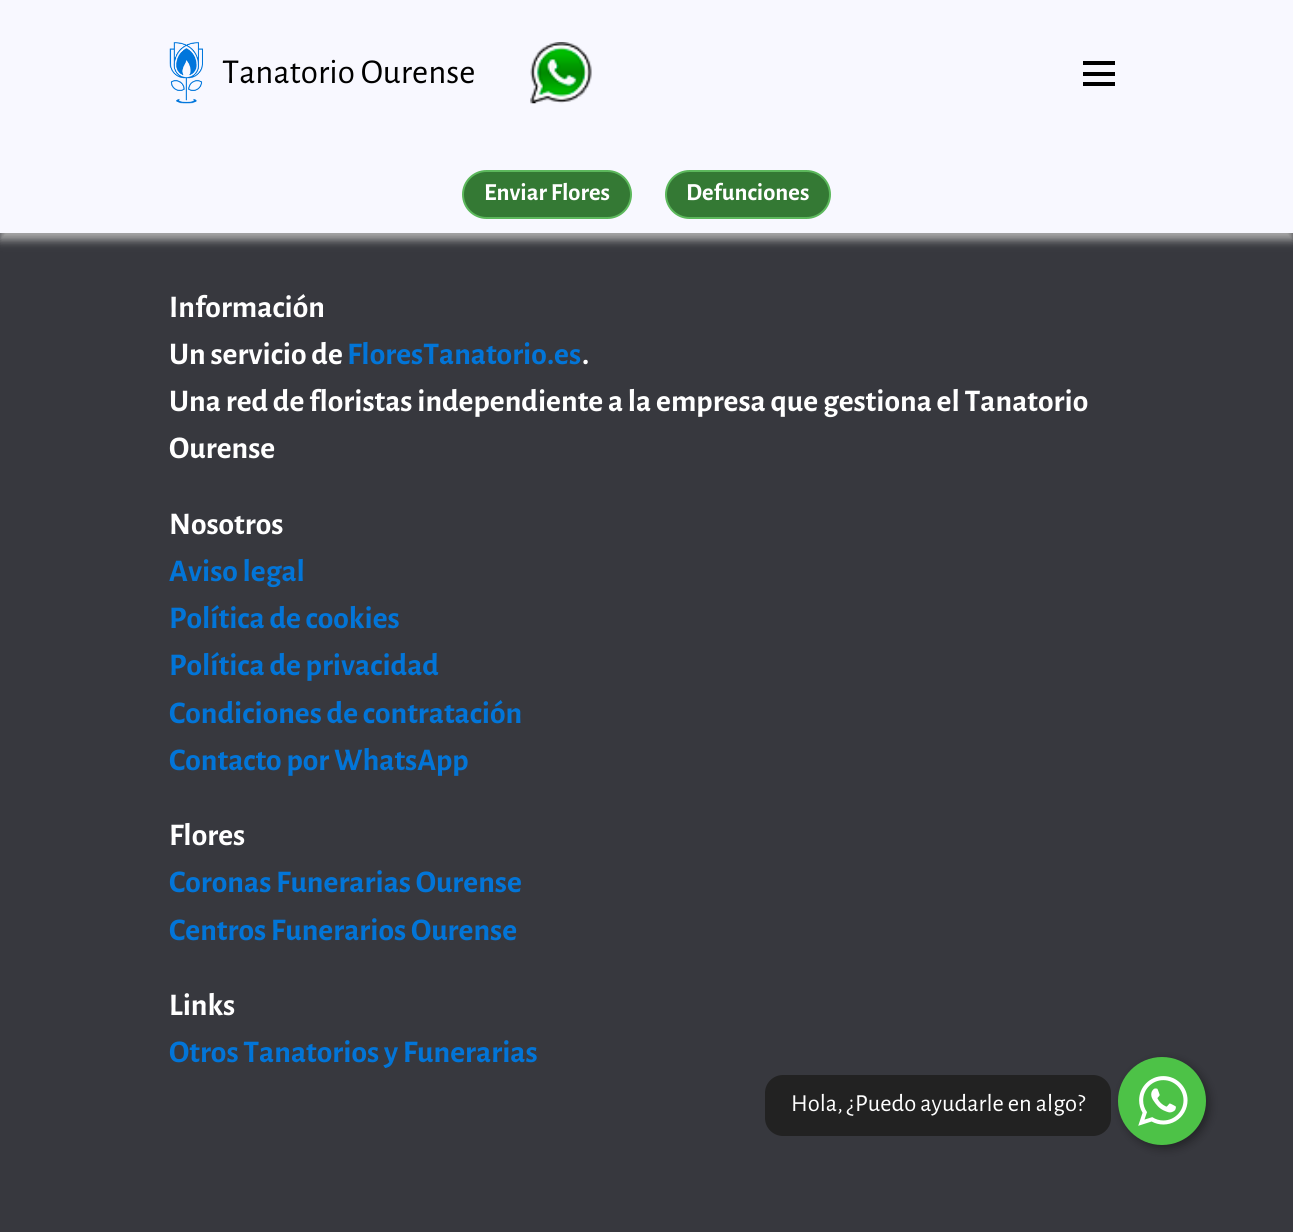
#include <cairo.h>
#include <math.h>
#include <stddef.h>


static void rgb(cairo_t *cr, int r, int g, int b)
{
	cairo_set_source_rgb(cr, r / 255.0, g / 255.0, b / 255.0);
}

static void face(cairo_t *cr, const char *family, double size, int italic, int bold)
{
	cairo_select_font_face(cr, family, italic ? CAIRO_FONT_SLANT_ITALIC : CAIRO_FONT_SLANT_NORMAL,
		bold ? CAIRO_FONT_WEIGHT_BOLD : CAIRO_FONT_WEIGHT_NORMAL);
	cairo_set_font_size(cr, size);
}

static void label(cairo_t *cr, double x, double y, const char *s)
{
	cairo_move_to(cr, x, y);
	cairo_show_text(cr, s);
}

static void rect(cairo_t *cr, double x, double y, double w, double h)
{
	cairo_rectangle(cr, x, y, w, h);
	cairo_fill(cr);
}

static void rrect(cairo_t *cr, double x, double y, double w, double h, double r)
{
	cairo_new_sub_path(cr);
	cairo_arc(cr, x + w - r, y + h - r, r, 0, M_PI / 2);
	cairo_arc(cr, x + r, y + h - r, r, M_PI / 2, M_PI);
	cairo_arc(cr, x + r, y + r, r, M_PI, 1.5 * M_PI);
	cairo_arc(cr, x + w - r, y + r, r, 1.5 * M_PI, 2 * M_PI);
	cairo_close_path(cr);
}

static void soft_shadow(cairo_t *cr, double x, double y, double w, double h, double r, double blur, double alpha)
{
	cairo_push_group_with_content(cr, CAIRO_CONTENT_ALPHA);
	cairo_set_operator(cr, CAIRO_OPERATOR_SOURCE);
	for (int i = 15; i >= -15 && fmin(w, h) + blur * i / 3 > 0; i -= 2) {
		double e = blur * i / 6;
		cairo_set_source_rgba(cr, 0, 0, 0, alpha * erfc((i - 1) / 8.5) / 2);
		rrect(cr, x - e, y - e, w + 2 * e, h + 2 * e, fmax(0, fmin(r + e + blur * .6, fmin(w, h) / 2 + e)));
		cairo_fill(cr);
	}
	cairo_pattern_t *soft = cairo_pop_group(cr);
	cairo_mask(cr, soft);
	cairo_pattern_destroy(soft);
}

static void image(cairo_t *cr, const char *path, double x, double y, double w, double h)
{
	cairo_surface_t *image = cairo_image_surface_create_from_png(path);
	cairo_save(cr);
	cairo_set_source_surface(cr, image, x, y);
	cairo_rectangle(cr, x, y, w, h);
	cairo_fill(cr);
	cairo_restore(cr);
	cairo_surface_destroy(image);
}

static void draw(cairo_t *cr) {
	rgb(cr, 55, 56, 62);
	cairo_paint(cr);
	rgb(cr, 170, 170, 170);
	soft_shadow(cr, 0, 152, 1293, 88, 0, 4.5, 1);
	rgb(cr, 248, 248, 255);
	rect(cr, 0, 0, 1293, 233);
	image(cr, "image0.png", 169, 42, 34, 62);
	face(cr, "Alegreya Sans", 35, 0, 0);
	rgb(cr, 0, 0, 0);
	label(cr, 222, 83, "Tanatorio Ourense");
	image(cr, "image1.png", 530, 42, 62, 62);
	rect(cr, 1083, 82, 32, 4);
	rect(cr, 1083, 72, 32, 4);
	rect(cr, 1083, 61, 32, 4);
	rgb(cr, 52, 121, 52);
	rrect(cr, 463, 171, 168, 47, 23.5);
	cairo_fill_preserve(cr);
	rgb(cr, 92, 184, 92);
	cairo_stroke(cr);
	face(cr, "Alegreya Sans", 24.5, 0, 1);
	rgb(cr, 255, 255, 255);
	label(cr, 484, 200, "Enviar Flores");
	rgb(cr, 52, 121, 52);
	rrect(cr, 666, 171, 164, 47, 23.5);
	cairo_fill_preserve(cr);
	rgb(cr, 92, 184, 92);
	cairo_stroke(cr);
	rgb(cr, 255, 255, 255);
	label(cr, 686, 200, "Defunciones");
	face(cr, "Alegreya Sans", 31.5, 0, 1);
	label(cr, 169, 317, "Información");
	label(cr, 169, 364, "Un servicio de");
	rgb(cr, 2, 117, 216);
	label(cr, 347, 364, "FloresTanatorio.es");
	rgb(cr, 255, 255, 255);
	label(cr, 582, 364, ".");
	label(cr, 169, 411, "Una red de floristas independiente a la empresa que gestiona el Tanatorio");
	label(cr, 169, 458, "Ourense");
	label(cr, 169, 534, "Nosotros");
	rgb(cr, 2, 117, 216);
	label(cr, 169, 581, "Aviso legal");
	label(cr, 169, 628, "Política de cookies");
	label(cr, 169, 675, "Política de privacidad");
	label(cr, 169, 723, "Condiciones de contratación");
	label(cr, 169, 770, "Contacto por WhatsApp");
	rgb(cr, 255, 255, 255);
	label(cr, 169, 845, "Flores");
	rgb(cr, 2, 117, 216);
	label(cr, 169, 892, "Coronas Funerarias Ourense");
	label(cr, 169, 940, "Centros Funerarios Ourense");
	rgb(cr, 255, 255, 255);
	label(cr, 169, 1015, "Links");
	rgb(cr, 2, 117, 216);
	label(cr, 169, 1062, "Otros Tanatorios y Funerarias");
	rgb(cr, 34, 34, 34);
	rrect(cr, 765, 1075, 346, 61, 18);
	cairo_fill(cr);
	face(cr, "Alegreya Sans", 24.5, 0, 0);
	rgb(cr, 255, 255, 255);
	label(cr, 791, 1111, "Hola, ¿Puedo ayudarle en algo?");
	rgb(cr, 0, 0, 0);
	soft_shadow(cr, 1122, 1061, 87, 87, 43.5, 5, 0.4);
	rgb(cr, 77, 194, 71);
	cairo_arc(cr, 1162, 1101, 44, 0, 2 * M_PI);
	cairo_fill(cr);
	image(cr, "image2.png", 1138, 1076, 50, 50);
}

int main(void) {
	cairo_surface_t *surface = cairo_image_surface_create(CAIRO_FORMAT_RGB24, 1293, 1232);
	cairo_t *cr = cairo_create(surface);
	cairo_font_options_t *options = cairo_font_options_create();
	cairo_font_options_set_hint_metrics(options, CAIRO_HINT_METRICS_OFF);
	cairo_font_options_set_hint_style(options, CAIRO_HINT_STYLE_NONE);
	cairo_set_font_options(cr, options);
	cairo_set_miter_limit(cr, 4);
	draw(cr);
	cairo_surface_write_to_png(surface, "render.png");
	cairo_font_options_destroy(options);
	cairo_destroy(cr);
	cairo_surface_destroy(surface);
	return 0;
}
